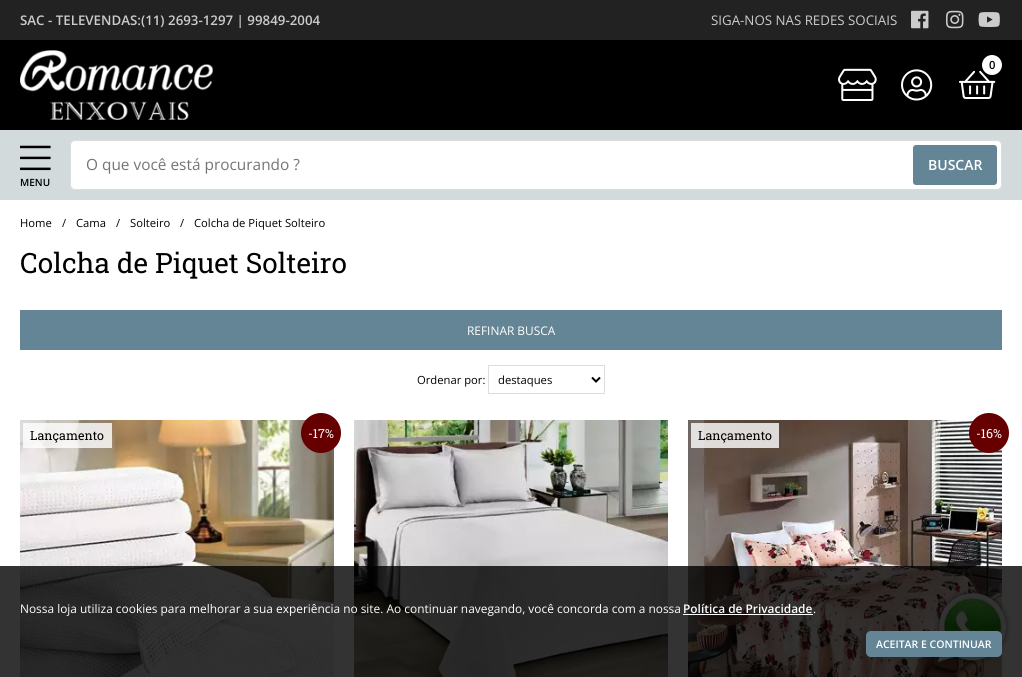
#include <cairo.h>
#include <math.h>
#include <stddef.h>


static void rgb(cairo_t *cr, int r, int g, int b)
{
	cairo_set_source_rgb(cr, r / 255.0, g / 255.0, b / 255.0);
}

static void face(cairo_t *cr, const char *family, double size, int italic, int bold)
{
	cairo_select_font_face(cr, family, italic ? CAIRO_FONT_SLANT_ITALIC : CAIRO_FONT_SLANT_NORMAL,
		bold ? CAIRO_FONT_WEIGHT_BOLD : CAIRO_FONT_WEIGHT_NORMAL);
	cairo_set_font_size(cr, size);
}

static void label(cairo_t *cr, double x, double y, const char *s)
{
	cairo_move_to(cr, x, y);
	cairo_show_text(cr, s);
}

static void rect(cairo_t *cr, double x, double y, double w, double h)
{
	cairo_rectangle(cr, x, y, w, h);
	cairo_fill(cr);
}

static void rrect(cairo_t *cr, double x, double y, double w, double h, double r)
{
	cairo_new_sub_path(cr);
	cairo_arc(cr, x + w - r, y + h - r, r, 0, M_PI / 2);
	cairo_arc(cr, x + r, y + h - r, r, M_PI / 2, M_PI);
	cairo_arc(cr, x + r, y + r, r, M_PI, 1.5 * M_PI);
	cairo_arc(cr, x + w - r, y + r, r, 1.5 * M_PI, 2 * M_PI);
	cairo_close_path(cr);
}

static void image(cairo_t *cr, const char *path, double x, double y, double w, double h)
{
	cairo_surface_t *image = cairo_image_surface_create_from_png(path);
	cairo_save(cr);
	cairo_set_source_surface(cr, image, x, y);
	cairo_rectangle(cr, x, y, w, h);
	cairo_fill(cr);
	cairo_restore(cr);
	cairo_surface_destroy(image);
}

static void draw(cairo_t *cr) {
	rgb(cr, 255, 255, 255);
	cairo_paint(cr);
	rgb(cr, 0, 0, 0);
	rect(cr, 0, 40, 1022, 90);
	rgb(cr, 34, 34, 34);
	rect(cr, 0, 0, 1022, 40);
	image(cr, "image0.png", 20, 50, 193, 70);
	face(cr, "Open Sans SemiBold", 13.3, 0, 0);
	rgb(cr, 204, 204, 204);
	label(cr, 20, 25, "SAC - TELEVENDAS:(11) 2693-1297 | 99849-2004");
	face(cr, "Open Sans", 13.3, 0, 0);
	label(cr, 711, 25, "SIGA-NOS NAS REDES SOCIAIS");
	image(cr, "image1.png", 911, 10, 18, 19);
	image(cr, "image2.png", 946, 10, 18, 19);
	image(cr, "image3.png", 978, 12, 22, 15);
	image(cr, "image4.png", 838, 68, 39, 33);
	image(cr, "image5.png", 959, 70, 37, 29);
	rgb(cr, 255, 255, 255);
	cairo_arc(cr, 992, 65, 10, 0, 2 * M_PI);
	cairo_fill(cr);
	face(cr, "Open Sans SemiBold", 11.25, 0, 0);
	rgb(cr, 0, 0, 0);
	label(cr, 989, 69, "0");
	image(cr, "image6.png", 901, 69, 32, 32);
	rgb(cr, 210, 218, 220);
	rect(cr, 0, 130, 1022, 70);
	rgb(cr, 255, 255, 255);
	rrect(cr, 70.5, 140.5, 931, 49, 4.5);
	cairo_fill_preserve(cr);
	rgb(cr, 221, 221, 221);
	cairo_set_line_width(cr, 1);
	cairo_stroke(cr);
	face(cr, "Open Sans", 15.4, 0, 0);
	rgb(cr, 117, 117, 117);
	label(cr, 86, 170, "O que você está procurando ?");
	rgb(cr, 100, 133, 150);
	rrect(cr, 913, 145, 84, 40, 3);
	cairo_fill(cr);
	face(cr, "Open Sans SemiBold", 14, 0, 0);
	rgb(cr, 255, 255, 255);
	label(cr, 928, 170, "BUSCAR");
	image(cr, "image7.png", 20, 145, 31, 26);
	face(cr, "Open Sans SemiBold", 10, 0, 0);
	rgb(cr, 0, 0, 0);
	label(cr, 20, 186, "MENU");
	face(cr, "Open Sans", 11.25, 0, 0);
	label(cr, 20, 227, "Home");
	label(cr, 62, 227, "/");
	label(cr, 76, 227, "Cama");
	label(cr, 116, 227, "/");
	label(cr, 130, 227, "Solteiro");
	label(cr, 180, 227, "/");
	label(cr, 194, 227, "Colcha de Piquet Solteiro");
	face(cr, "Roboto Slab", 28, 0, 0);
	label(cr, 20, 273, "Colcha de Piquet Solteiro");
	rgb(cr, 100, 133, 150);
	rect(cr, 20, 310, 982, 40);
	face(cr, "Open Sans", 11.9, 0, 0);
	rgb(cr, 255, 255, 255);
	label(cr, 467, 335, "REFINAR BUSCA");
	face(cr, "Open Sans", 11.25, 0, 0);
	rgb(cr, 0, 0, 0);
	label(cr, 417, 384, "Ordenar por:");
	cairo_rectangle(cr, 488.5, 365.5, 116, 28);
	rgb(cr, 221, 221, 221);
	cairo_stroke(cr);
	cairo_new_path(cr);
	cairo_move_to(cr, 592, 377.5);
	cairo_line_to(cr, 596, 381.5);
	cairo_line_to(cr, 600, 377.5);
	rgb(cr, 0, 0, 0);
	cairo_set_line_width(cr, 2);
	cairo_stroke(cr);
	label(cr, 498, 384, "destaques");
	image(cr, "image8.png", 20, 420, 314, 257);
	cairo_set_source_rgba(cr, 1, 1, 1, 0.8);
	rect(cr, 23, 423, 89, 25);
	face(cr, "Roboto Slab", 12.5, 0, 0);
	rgb(cr, 0, 0, 0);
	label(cr, 30, 440, "Lançamento");
	rgb(cr, 102, 0, 0);
	cairo_new_path(cr);
	cairo_arc(cr, 321, 433, 20, 0, 2 * M_PI);
	cairo_fill(cr);
	rgb(cr, 255, 255, 255);
	label(cr, 308, 438, "-17%");
	image(cr, "image9.png", 354, 420, 314, 257);
	image(cr, "image10.png", 688, 420, 314, 257);
	cairo_set_source_rgba(cr, 1, 1, 1, 0.8);
	rect(cr, 691, 423, 88, 25);
	rgb(cr, 0, 0, 0);
	label(cr, 698, 440, "Lançamento");
	rgb(cr, 102, 0, 0);
	cairo_new_path(cr);
	cairo_arc(cr, 989, 433, 20, 0, 2 * M_PI);
	cairo_fill(cr);
	rgb(cr, 255, 255, 255);
	label(cr, 976, 438, "-16%");
	image(cr, "image11.png", 934, 588, 77, 77);
	cairo_set_source_rgba(cr, 0, 0, 0, 0.8);
	rect(cr, 0, 566, 1022, 111);
	face(cr, "Open Sans", 11.9, 0, 0);
	rgb(cr, 255, 255, 255);
	label(cr, 20, 613, "Nossa loja utiliza cookies para melhorar a sua experiência no site. Ao continuar navegando, você concorda com a nossa");
	face(cr, "Open Sans SemiBold", 11.9, 0, 0);
	label(cr, 683, 613, "Política de Privacidade");
	rect(cr, 683, 614, 130, 1);
	face(cr, "Open Sans", 11.9, 0, 0);
	label(cr, 813, 613, ".");
	rgb(cr, 100, 133, 150);
	rrect(cr, 866, 631, 136, 26, 5);
	cairo_fill(cr);
	face(cr, "Open Sans SemiBold", 10.5, 0, 0);
	rgb(cr, 255, 255, 255);
	label(cr, 876, 648, "ACEITAR E CONTINUAR");
}

int main(void) {
	cairo_surface_t *surface = cairo_image_surface_create(CAIRO_FORMAT_RGB24, 1022, 677);
	cairo_t *cr = cairo_create(surface);
	cairo_font_options_t *options = cairo_font_options_create();
	cairo_font_options_set_hint_metrics(options, CAIRO_HINT_METRICS_OFF);
	cairo_font_options_set_hint_style(options, CAIRO_HINT_STYLE_NONE);
	cairo_set_font_options(cr, options);
	cairo_set_miter_limit(cr, 4);
	draw(cr);
	cairo_surface_write_to_png(surface, "render.png");
	cairo_font_options_destroy(options);
	cairo_destroy(cr);
	cairo_surface_destroy(surface);
	return 0;
}
